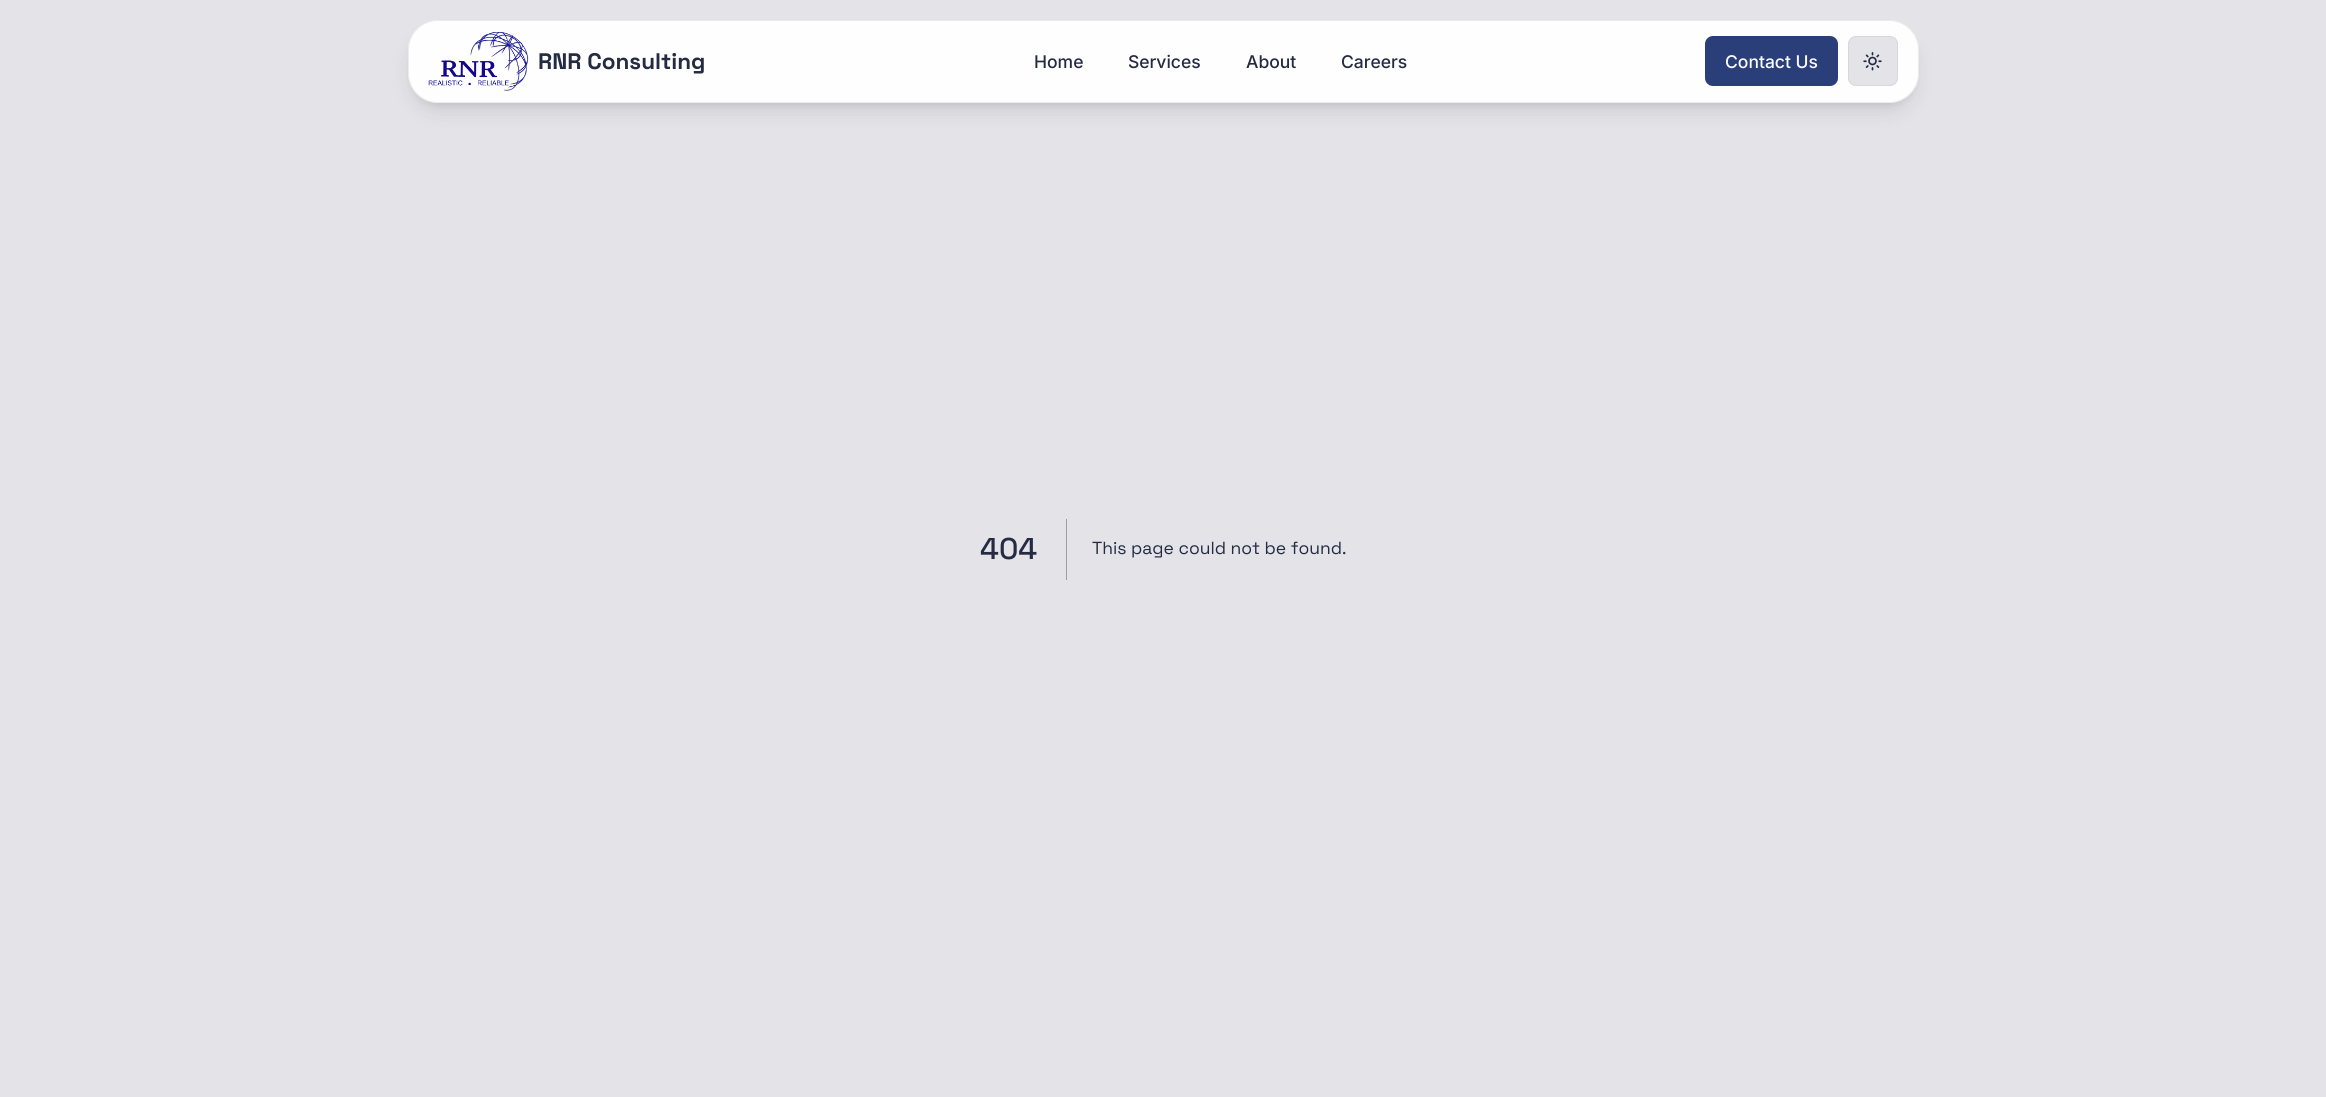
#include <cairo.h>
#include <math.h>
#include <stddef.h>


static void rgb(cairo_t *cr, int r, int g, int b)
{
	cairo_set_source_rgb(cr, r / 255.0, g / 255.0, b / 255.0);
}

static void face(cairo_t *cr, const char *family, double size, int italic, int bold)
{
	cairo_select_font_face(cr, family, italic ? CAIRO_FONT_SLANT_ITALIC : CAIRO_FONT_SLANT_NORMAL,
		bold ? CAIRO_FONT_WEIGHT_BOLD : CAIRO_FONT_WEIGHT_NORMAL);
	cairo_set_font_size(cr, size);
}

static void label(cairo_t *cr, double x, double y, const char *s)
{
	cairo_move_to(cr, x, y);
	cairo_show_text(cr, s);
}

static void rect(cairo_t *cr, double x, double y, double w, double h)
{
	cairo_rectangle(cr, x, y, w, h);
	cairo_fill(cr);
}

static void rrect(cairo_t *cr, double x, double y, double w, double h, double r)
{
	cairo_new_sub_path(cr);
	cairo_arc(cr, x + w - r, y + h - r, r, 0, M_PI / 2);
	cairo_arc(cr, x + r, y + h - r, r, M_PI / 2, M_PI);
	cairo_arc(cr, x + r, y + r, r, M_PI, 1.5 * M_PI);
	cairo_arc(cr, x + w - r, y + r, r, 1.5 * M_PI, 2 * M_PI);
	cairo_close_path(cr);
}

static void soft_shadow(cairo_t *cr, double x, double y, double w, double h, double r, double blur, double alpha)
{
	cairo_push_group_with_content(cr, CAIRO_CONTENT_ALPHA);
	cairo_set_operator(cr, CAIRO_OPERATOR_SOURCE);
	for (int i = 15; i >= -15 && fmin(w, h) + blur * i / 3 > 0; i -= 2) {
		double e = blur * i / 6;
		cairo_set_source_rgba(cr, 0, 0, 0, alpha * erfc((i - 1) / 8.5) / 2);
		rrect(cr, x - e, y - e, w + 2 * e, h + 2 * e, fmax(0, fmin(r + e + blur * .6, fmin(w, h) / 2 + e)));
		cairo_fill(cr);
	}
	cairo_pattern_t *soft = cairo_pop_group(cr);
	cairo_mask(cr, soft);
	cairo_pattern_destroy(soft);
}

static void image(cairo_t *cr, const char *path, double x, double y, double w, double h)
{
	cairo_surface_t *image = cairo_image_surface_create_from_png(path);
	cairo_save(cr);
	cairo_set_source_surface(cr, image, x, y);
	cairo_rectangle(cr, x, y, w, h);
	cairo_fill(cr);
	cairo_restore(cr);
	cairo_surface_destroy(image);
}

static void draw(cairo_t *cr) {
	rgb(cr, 227, 227, 232);
	cairo_paint(cr);
	cairo_save(cr);
	cairo_set_fill_rule(cr, CAIRO_FILL_RULE_EVEN_ODD);
	cairo_new_path(cr);
	cairo_move_to(cr, 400, 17);
	cairo_line_to(cr, 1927, 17);
	cairo_line_to(cr, 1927, 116);
	cairo_line_to(cr, 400, 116);
	cairo_close_path(cr);
	cairo_move_to(cr, 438, 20);
	cairo_line_to(cr, 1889, 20);
	cairo_curve_to(cr, 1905.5, 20, 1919, 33.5, 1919, 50);
	cairo_line_to(cr, 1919, 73);
	cairo_curve_to(cr, 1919, 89.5, 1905.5, 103, 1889, 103);
	cairo_line_to(cr, 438, 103);
	cairo_curve_to(cr, 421.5, 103, 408, 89.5, 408, 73);
	cairo_line_to(cr, 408, 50);
	cairo_curve_to(cr, 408, 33.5, 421.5, 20, 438, 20);
	cairo_close_path(cr);
	cairo_clip(cr);
	rgb(cr, 0, 0, 0);
	soft_shadow(cr, 413, 30, 1501, 73, 25, 4, 0.1);
	cairo_restore(cr);
	cairo_save(cr);
	cairo_set_fill_rule(cr, CAIRO_FILL_RULE_EVEN_ODD);
	cairo_new_path(cr);
	cairo_move_to(cr, 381, 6);
	cairo_line_to(cr, 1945, 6);
	cairo_line_to(cr, 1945, 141);
	cairo_line_to(cr, 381, 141);
	cairo_close_path(cr);
	cairo_move_to(cr, 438, 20);
	cairo_line_to(cr, 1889, 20);
	cairo_curve_to(cr, 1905.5, 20, 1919, 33.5, 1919, 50);
	cairo_line_to(cr, 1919, 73);
	cairo_curve_to(cr, 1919, 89.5, 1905.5, 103, 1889, 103);
	cairo_line_to(cr, 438, 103);
	cairo_curve_to(cr, 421.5, 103, 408, 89.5, 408, 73);
	cairo_line_to(cr, 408, 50);
	cairo_curve_to(cr, 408, 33.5, 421.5, 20, 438, 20);
	cairo_close_path(cr);
	cairo_clip(cr);
	rgb(cr, 0, 0, 0);
	soft_shadow(cr, 411, 36, 1504, 75, 26, 9.5, 0.1);
	cairo_restore(cr);
	cairo_set_source_rgba(cr, 1, 1, 1, 0.95);
	rrect(cr, 408, 20, 1511, 83, 30);
	cairo_fill(cr);
	rrect(cr, 408.5, 20.5, 1510, 82, 29.5);
	cairo_set_source_rgba(cr, 0.804, 0.812, 0.839, 0.4);
	cairo_set_line_width(cr, 1);
	cairo_stroke(cr);
	image(cr, "image0.png", 428, 32, 101, 59);
	face(cr, "Space Grotesk", 22.5, 0, 1);
	rgb(cr, 36, 43, 66);
	label(cr, 538, 69, "RNR Consulting");
	face(cr, "Inter Medium", 17.5, 0, 0);
	label(cr, 1034, 68, "Home");
	label(cr, 1128, 68, "Services");
	label(cr, 1246, 68, "About");
	label(cr, 1341, 68, "Careers");
	rgb(cr, 42, 62, 122);
	rrect(cr, 1705, 36, 133, 50, 8);
	cairo_fill(cr);
	rgb(cr, 250, 250, 250);
	label(cr, 1725, 68, "Contact Us");
	rgb(cr, 227, 227, 232);
	rrect(cr, 1848.5, 36.5, 49, 49, 7.5);
	cairo_fill_preserve(cr);
	rgb(cr, 213, 215, 221);
	cairo_stroke(cr);
	image(cr, "image1.png", 1863, 52, 19, 19);
	rgb(cr, 159, 159, 162);
	rect(cr, 1066, 519, 1, 61);
	face(cr, "Space Grotesk Medium", 30, 0, 0);
	rgb(cr, 36, 43, 66);
	label(cr, 980, 559, "404");
	face(cr, "Space Grotesk", 17.5, 0, 0);
	label(cr, 1092, 554, "This page could not be found.");
}

int main(void) {
	cairo_surface_t *surface = cairo_image_surface_create(CAIRO_FORMAT_RGB24, 2326, 1097);
	cairo_t *cr = cairo_create(surface);
	cairo_font_options_t *options = cairo_font_options_create();
	cairo_font_options_set_hint_metrics(options, CAIRO_HINT_METRICS_OFF);
	cairo_font_options_set_hint_style(options, CAIRO_HINT_STYLE_NONE);
	cairo_set_font_options(cr, options);
	cairo_set_miter_limit(cr, 4);
	draw(cr);
	cairo_surface_write_to_png(surface, "render.png");
	cairo_font_options_destroy(options);
	cairo_destroy(cr);
	cairo_surface_destroy(surface);
	return 0;
}
